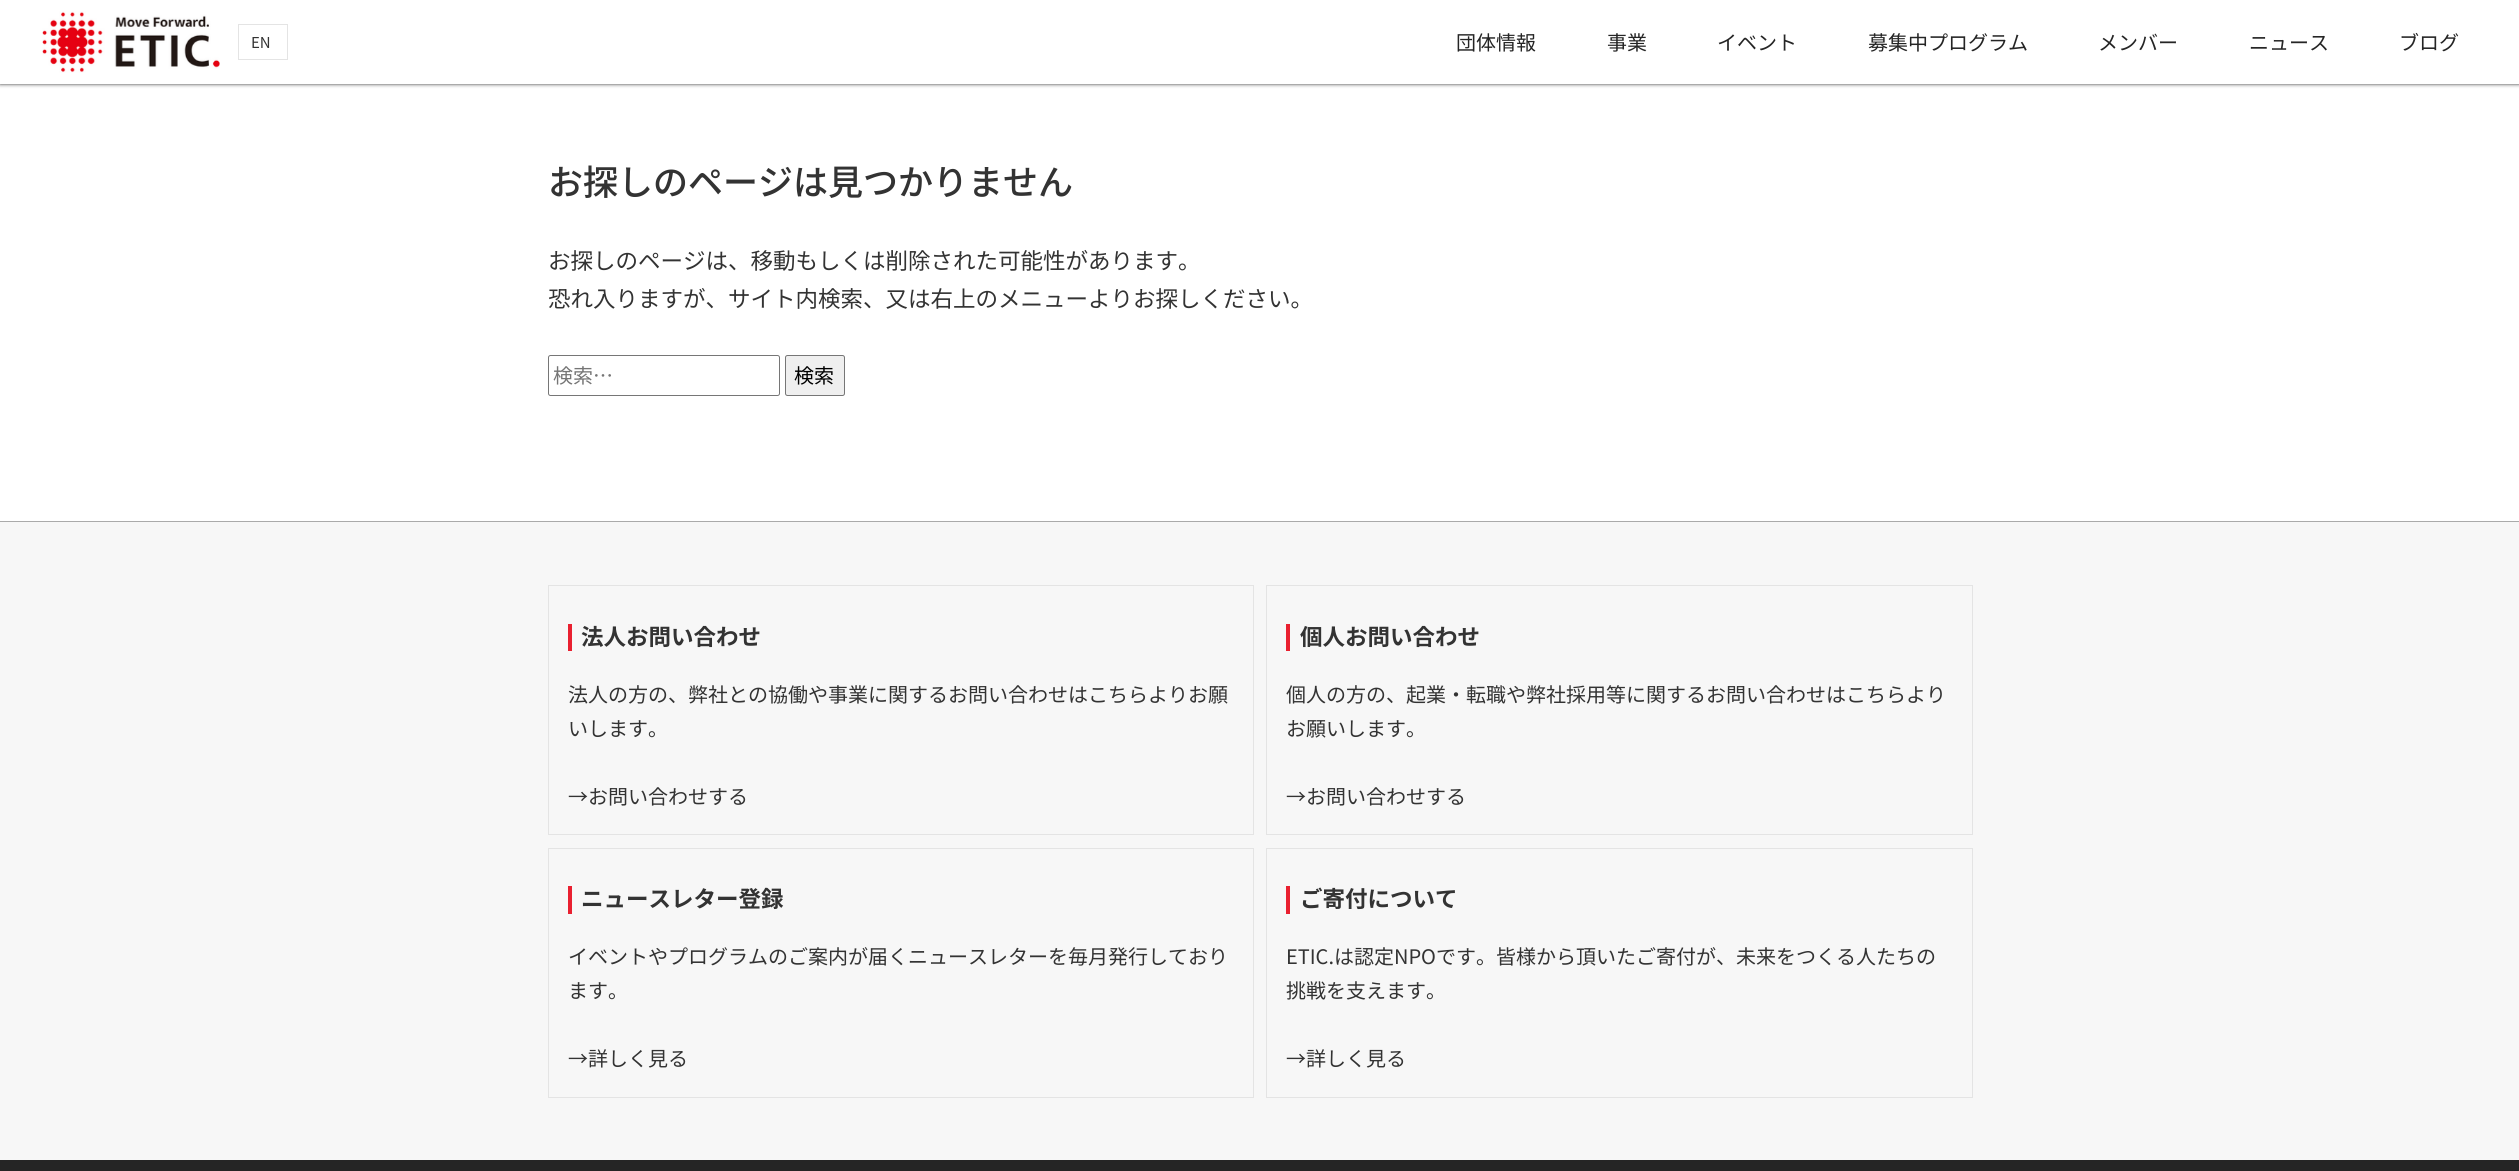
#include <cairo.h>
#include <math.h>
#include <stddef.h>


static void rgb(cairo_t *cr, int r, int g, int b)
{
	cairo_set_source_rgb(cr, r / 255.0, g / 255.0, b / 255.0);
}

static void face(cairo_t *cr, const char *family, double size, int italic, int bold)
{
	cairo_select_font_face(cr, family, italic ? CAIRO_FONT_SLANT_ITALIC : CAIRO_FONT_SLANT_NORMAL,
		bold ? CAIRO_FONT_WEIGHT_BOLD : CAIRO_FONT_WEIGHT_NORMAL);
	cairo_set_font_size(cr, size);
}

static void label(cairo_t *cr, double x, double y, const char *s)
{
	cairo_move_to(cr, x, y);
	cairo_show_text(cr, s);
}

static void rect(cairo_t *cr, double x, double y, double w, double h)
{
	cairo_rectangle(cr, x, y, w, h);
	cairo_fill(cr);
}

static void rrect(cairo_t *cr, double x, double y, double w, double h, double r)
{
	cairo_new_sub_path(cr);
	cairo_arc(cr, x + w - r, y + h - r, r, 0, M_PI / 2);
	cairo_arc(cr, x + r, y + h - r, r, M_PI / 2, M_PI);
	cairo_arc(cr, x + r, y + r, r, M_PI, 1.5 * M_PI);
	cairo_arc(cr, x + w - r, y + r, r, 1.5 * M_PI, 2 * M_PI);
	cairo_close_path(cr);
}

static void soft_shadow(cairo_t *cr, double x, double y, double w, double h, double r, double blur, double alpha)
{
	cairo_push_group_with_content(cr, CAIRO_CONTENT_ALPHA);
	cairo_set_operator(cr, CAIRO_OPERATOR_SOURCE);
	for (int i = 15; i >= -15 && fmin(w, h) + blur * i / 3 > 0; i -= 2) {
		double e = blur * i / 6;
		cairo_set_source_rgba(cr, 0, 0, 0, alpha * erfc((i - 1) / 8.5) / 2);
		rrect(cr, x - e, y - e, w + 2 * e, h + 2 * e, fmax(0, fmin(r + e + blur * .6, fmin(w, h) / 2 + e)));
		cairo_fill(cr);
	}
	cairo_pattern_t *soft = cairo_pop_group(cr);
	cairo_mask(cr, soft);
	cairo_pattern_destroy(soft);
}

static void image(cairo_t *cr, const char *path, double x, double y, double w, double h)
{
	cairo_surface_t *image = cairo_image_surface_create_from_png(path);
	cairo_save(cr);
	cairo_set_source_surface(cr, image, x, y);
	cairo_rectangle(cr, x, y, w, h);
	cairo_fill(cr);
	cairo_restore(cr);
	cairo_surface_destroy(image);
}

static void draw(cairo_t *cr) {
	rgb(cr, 255, 255, 255);
	cairo_paint(cr);
	rgb(cr, 51, 51, 51);
	soft_shadow(cr, 0, 0, 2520, 84, 0, 2, 1);
	rgb(cr, 255, 255, 255);
	rect(cr, 0, 0, 2519, 84);
	image(cr, "image0.png", 42, 11, 178, 62);
	cairo_rectangle(cr, 238.5, 24.5, 49, 35);
	rgb(cr, 228, 228, 228);
	cairo_set_line_width(cr, 1);
	cairo_stroke(cr);
	face(cr, "Noto Sans JP", 15, 0, 0);
	rgb(cr, 51, 51, 51);
	label(cr, 251, 48, "EN");
	face(cr, "Noto Sans JP", 20, 0, 0);
	rgb(cr, 37, 37, 37);
	label(cr, 1456, 50, "団体情報");
	label(cr, 1607, 50, "事業");
	label(cr, 1717, 50, "イベント");
	label(cr, 1868, 50, "募集中プログラム");
	label(cr, 2098, 50, "メンバー");
	label(cr, 2249, 50, "ニュース");
	label(cr, 2399, 50, "ブログ");
	face(cr, "Noto Sans JP Medium", 35, 0, 0);
	rgb(cr, 51, 51, 51);
	label(cr, 548, 195, "お探しのページは見つかりません");
	face(cr, "Noto Sans JP", 22.5, 0, 0);
	label(cr, 548, 269, "お探しのページは、移動もしくは削除された可能性があります。");
	label(cr, 548, 307, "恐れ入りますが、サイト内検索、又は右上のメニューよりお探しください。");
	rrect(cr, 548.5, 355.5, 231, 40, 2);
	rgb(cr, 118, 118, 118);
	cairo_stroke(cr);
	face(cr, "Noto Sans JP", 20, 0, 0);
	rgb(cr, 117, 117, 117);
	label(cr, 553, 383, "検索…");
	rgb(cr, 239, 239, 239);
	rrect(cr, 785.5, 355.5, 59, 40, 2);
	cairo_fill_preserve(cr);
	rgb(cr, 118, 118, 118);
	cairo_stroke(cr);
	rgb(cr, 0, 0, 0);
	label(cr, 794, 383, "検索");
	rgb(cr, 247, 247, 247);
	rect(cr, 0, 522, 2519, 638);
	rgb(cr, 170, 170, 170);
	rect(cr, 0, 521, 2519, 1);
	cairo_rectangle(cr, 548.5, 585.5, 705, 249);
	rgb(cr, 228, 228, 228);
	cairo_stroke(cr);
	rgb(cr, 233, 32, 48);
	rect(cr, 568, 624, 4, 27);
	face(cr, "Noto Sans JP", 22.5, 0, 1);
	rgb(cr, 51, 51, 51);
	label(cr, 581, 645, "法人お問い合わせ");
	face(cr, "Noto Sans JP", 20, 0, 0);
	label(cr, 568, 702, "法人の方の、弊社との協働や事業に関するお問い合わせはこちらよりお願");
	label(cr, 568, 736, "いします。");
	label(cr, 568, 804, "→お問い合わせする");
	cairo_rectangle(cr, 1266.5, 585.5, 706, 249);
	rgb(cr, 228, 228, 228);
	cairo_stroke(cr);
	rgb(cr, 233, 32, 48);
	rect(cr, 1286, 624, 4, 27);
	face(cr, "Noto Sans JP", 22.5, 0, 1);
	rgb(cr, 51, 51, 51);
	label(cr, 1300, 645, "個人お問い合わせ");
	face(cr, "Noto Sans JP", 20, 0, 0);
	label(cr, 1286, 702, "個人の方の、起業・転職や弊社採用等に関するお問い合わせはこちらより");
	label(cr, 1286, 736, "お願いします。");
	label(cr, 1286, 804, "→お問い合わせする");
	cairo_rectangle(cr, 548.5, 848.5, 705, 249);
	rgb(cr, 228, 228, 228);
	cairo_stroke(cr);
	rgb(cr, 233, 32, 48);
	rect(cr, 568, 886, 4, 28);
	face(cr, "Noto Sans JP", 22.5, 0, 1);
	rgb(cr, 51, 51, 51);
	label(cr, 581, 907, "ニュースレター登録");
	face(cr, "Noto Sans JP", 20, 0, 0);
	label(cr, 568, 964, "イベントやプログラムのご案内が届くニュースレターを毎月発行しており");
	label(cr, 568, 998, "ます。");
	label(cr, 568, 1066, "→詳しく見る");
	cairo_rectangle(cr, 1266.5, 848.5, 706, 249);
	rgb(cr, 228, 228, 228);
	cairo_stroke(cr);
	rgb(cr, 233, 32, 48);
	rect(cr, 1286, 886, 4, 28);
	face(cr, "Noto Sans JP", 22.5, 0, 1);
	rgb(cr, 51, 51, 51);
	label(cr, 1300, 907, "ご寄付について");
	face(cr, "Noto Sans JP", 20, 0, 0);
	label(cr, 1286, 964, "ETIC.は認定NPOです。皆様から頂いたご寄付が、未来をつくる人たちの");
	label(cr, 1286, 998, "挑戦を支えます。");
	label(cr, 1286, 1066, "→詳しく見る");
	rgb(cr, 37, 37, 37);
	rect(cr, 0, 1160, 2519, 11);
}

int main(void) {
	cairo_surface_t *surface = cairo_image_surface_create(CAIRO_FORMAT_RGB24, 2519, 1171);
	cairo_t *cr = cairo_create(surface);
	cairo_font_options_t *options = cairo_font_options_create();
	cairo_font_options_set_hint_metrics(options, CAIRO_HINT_METRICS_OFF);
	cairo_font_options_set_hint_style(options, CAIRO_HINT_STYLE_NONE);
	cairo_set_font_options(cr, options);
	cairo_set_miter_limit(cr, 4);
	draw(cr);
	cairo_surface_write_to_png(surface, "render.png");
	cairo_font_options_destroy(options);
	cairo_destroy(cr);
	cairo_surface_destroy(surface);
	return 0;
}
